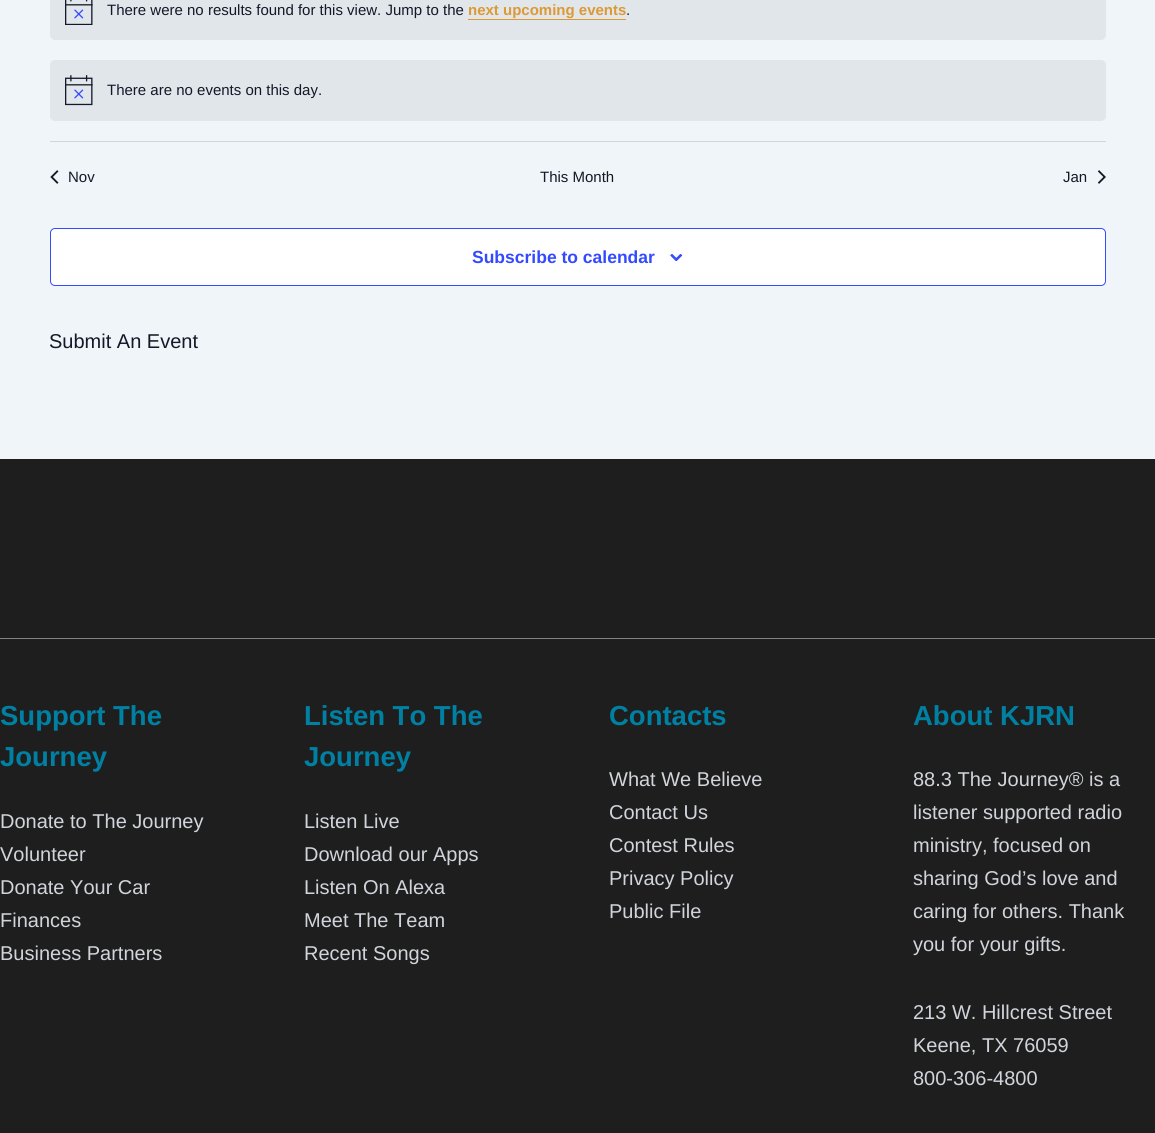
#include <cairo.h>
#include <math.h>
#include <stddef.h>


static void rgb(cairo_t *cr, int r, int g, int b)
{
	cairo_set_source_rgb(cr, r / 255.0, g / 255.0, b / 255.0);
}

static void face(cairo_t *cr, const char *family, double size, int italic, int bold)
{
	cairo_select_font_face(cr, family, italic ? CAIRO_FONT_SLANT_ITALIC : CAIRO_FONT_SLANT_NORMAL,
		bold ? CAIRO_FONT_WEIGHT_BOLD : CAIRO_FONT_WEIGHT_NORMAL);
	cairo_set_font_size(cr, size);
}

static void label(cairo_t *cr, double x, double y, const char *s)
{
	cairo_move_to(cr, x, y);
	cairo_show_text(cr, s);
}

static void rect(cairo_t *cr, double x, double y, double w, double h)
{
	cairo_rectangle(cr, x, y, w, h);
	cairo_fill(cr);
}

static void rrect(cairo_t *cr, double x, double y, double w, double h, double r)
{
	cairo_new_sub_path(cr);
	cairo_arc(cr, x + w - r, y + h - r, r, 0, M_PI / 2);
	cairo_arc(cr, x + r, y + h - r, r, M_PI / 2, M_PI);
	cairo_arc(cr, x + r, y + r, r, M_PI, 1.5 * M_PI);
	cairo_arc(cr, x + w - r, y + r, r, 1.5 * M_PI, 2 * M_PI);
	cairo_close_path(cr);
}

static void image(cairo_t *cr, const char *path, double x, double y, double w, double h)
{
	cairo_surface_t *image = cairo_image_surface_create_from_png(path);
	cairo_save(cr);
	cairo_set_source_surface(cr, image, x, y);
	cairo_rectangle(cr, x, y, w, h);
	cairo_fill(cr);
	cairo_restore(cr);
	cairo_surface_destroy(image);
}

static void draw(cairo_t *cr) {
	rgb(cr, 240, 245, 250);
	cairo_paint(cr);
	rgb(cr, 225, 230, 235);
	rrect(cr, 50, -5, 1056, 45, 5);
	cairo_fill(cr);
	image(cr, "image0.png", 65, 0, 28, 25);
	face(cr, "Liberation Sans", 15, 0, 0);
	rgb(cr, 20, 24, 39);
	label(cr, 107, 15, "There were no results found for this view. Jump to the");
	face(cr, "Liberation Sans", 15, 0, 1);
	rgb(cr, 221, 153, 51);
	label(cr, 468, 15, "next upcoming events");
	rect(cr, 468, 19, 158, 1);
	face(cr, "Liberation Sans", 15, 0, 0);
	rgb(cr, 20, 24, 39);
	label(cr, 626, 15, ".");
	rgb(cr, 225, 230, 235);
	rrect(cr, 50, 60, 1056, 61, 5);
	cairo_fill(cr);
	image(cr, "image1.png", 65, 75, 28, 31);
	rgb(cr, 20, 24, 39);
	label(cr, 107, 95, "There are no events on this day.");
	rgb(cr, 213, 213, 213);
	rect(cr, 50, 141, 1056, 1);
	image(cr, "image2.png", 50, 170, 9, 14);
	rgb(cr, 20, 24, 39);
	label(cr, 68, 182, "Nov");
	label(cr, 540, 182, "This Month");
	label(cr, 1063, 182, "Jan");
	image(cr, "image3.png", 1098, 170, 8, 14);
	rgb(cr, 255, 255, 255);
	rrect(cr, 50.5, 228.5, 1055, 57, 4.5);
	cairo_fill_preserve(cr);
	rgb(cr, 51, 74, 255);
	cairo_set_line_width(cr, 1);
	cairo_stroke(cr);
	face(cr, "Liberation Sans", 17.5, 0, 1);
	label(cr, 472, 263, "Subscribe to calendar");
	image(cr, "image4.png", 670, 254, 13, 7);
	face(cr, "Liberation Sans", 20, 0, 0);
	rgb(cr, 20, 24, 39);
	label(cr, 49, 348, "Submit An Event");
	rgb(cr, 30, 30, 30);
	rect(cr, 0, 459, 1155, 179);
	rect(cr, 0, 639, 1155, 494);
	rgb(cr, 131, 132, 133);
	rect(cr, 0, 638, 1155, 1);
	face(cr, "Liberation Sans", 27.5, 0, 1);
	rgb(cr, 0, 128, 162);
	label(cr, 0, 725, "Support The");
	label(cr, 0, 766, "Journey");
	face(cr, "Liberation Sans", 20, 0, 0);
	rgb(cr, 209, 213, 219);
	label(cr, 0, 828, "Donate to The Journey");
	label(cr, 0, 861, "Volunteer");
	label(cr, 0, 894, "Donate Your Car");
	label(cr, 0, 927, "Finances");
	label(cr, 0, 960, "Business Partners");
	face(cr, "Liberation Sans", 27.5, 0, 1);
	rgb(cr, 0, 128, 162);
	label(cr, 304, 725, "Listen To The");
	label(cr, 304, 766, "Journey");
	face(cr, "Liberation Sans", 20, 0, 0);
	rgb(cr, 209, 213, 219);
	label(cr, 304, 828, "Listen Live");
	label(cr, 304, 861, "Download our Apps");
	label(cr, 304, 894, "Listen On Alexa");
	label(cr, 304, 927, "Meet The Team");
	label(cr, 304, 960, "Recent Songs");
	face(cr, "Liberation Sans", 27.5, 0, 1);
	rgb(cr, 0, 128, 162);
	label(cr, 609, 725, "Contacts");
	face(cr, "Liberation Sans", 20, 0, 0);
	rgb(cr, 209, 213, 219);
	label(cr, 609, 786, "What We Believe");
	label(cr, 609, 819, "Contact Us");
	label(cr, 609, 852, "Contest Rules");
	label(cr, 609, 885, "Privacy Policy");
	label(cr, 609, 918, "Public File");
	face(cr, "Liberation Sans", 27.5, 0, 1);
	rgb(cr, 0, 128, 162);
	label(cr, 913, 725, "About KJRN");
	face(cr, "Liberation Sans", 20, 0, 0);
	rgb(cr, 209, 213, 219);
	label(cr, 913, 786, "88.3 The Journey® is a");
	label(cr, 913, 819, "listener supported radio");
	label(cr, 913, 852, "ministry, focused on");
	label(cr, 913, 885, "sharing God’s love and");
	label(cr, 913, 918, "caring for others. Thank");
	label(cr, 913, 951, "you for your gifts.");
	label(cr, 913, 1019, "213 W. Hillcrest Street");
	label(cr, 913, 1052, "Keene, TX 76059");
	label(cr, 913, 1085, "800-306-4800");
}

int main(void) {
	cairo_surface_t *surface = cairo_image_surface_create(CAIRO_FORMAT_RGB24, 1155, 1133);
	cairo_t *cr = cairo_create(surface);
	cairo_font_options_t *options = cairo_font_options_create();
	cairo_font_options_set_hint_metrics(options, CAIRO_HINT_METRICS_OFF);
	cairo_font_options_set_hint_style(options, CAIRO_HINT_STYLE_NONE);
	cairo_set_font_options(cr, options);
	cairo_set_miter_limit(cr, 4);
	draw(cr);
	cairo_surface_write_to_png(surface, "render.png");
	cairo_font_options_destroy(options);
	cairo_destroy(cr);
	cairo_surface_destroy(surface);
	return 0;
}
